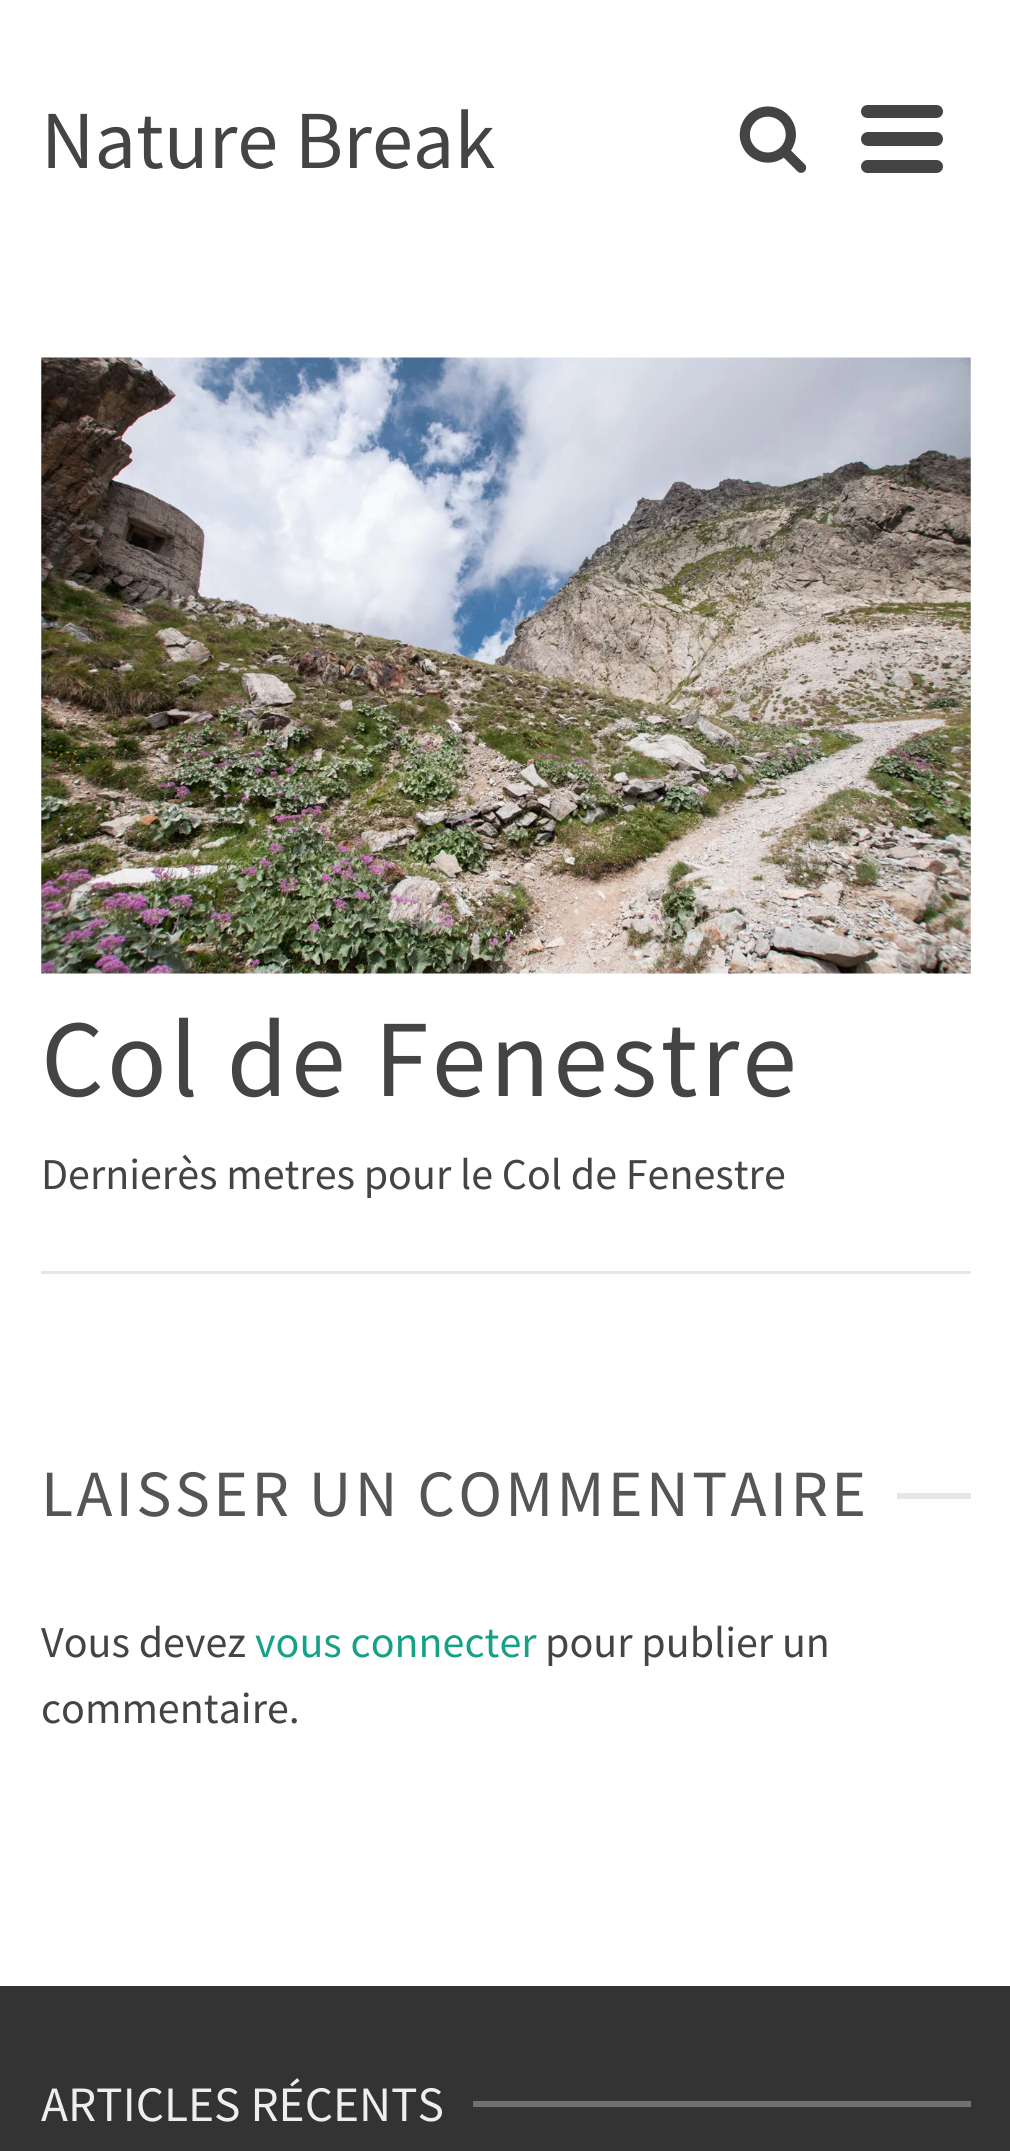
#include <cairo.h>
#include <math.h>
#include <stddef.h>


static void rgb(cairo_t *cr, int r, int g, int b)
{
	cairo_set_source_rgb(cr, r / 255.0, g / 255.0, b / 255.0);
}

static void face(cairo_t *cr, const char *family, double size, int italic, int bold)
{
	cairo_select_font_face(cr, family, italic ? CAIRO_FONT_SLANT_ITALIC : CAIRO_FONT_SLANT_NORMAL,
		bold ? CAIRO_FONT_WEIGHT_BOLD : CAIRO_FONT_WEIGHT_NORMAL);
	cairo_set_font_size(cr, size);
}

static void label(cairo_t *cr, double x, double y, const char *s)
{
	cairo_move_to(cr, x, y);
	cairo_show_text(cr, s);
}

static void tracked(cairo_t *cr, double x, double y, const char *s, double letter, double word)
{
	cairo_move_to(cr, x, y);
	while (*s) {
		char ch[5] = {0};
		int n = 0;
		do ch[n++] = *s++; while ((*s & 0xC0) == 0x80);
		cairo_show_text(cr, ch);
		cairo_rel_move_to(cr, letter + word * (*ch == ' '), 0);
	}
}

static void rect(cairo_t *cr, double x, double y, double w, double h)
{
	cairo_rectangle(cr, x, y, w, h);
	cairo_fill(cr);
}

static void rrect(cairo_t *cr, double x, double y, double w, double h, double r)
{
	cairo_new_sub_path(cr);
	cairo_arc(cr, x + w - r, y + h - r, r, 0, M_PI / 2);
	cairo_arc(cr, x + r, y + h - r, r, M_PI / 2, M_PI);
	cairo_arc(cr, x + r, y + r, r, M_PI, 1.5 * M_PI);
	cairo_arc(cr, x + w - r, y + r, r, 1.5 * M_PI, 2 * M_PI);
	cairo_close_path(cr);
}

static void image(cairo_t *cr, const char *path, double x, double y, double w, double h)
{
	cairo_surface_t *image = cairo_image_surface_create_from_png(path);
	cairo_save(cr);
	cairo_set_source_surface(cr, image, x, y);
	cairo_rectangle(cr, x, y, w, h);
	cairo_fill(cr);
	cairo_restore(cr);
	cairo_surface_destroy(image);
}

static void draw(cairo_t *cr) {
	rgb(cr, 255, 255, 255);
	cairo_paint(cr);
	face(cr, "Source Sans Pro", 82.5, 0, 0);
	rgb(cr, 68, 68, 68);
	label(cr, 41, 168, "Nature Break");
	image(cr, "image0.png", 739, 106, 68, 67);
	rrect(cr, 861, 105, 82, 13, 6.5);
	cairo_fill(cr);
	rrect(cr, 861, 132, 82, 14, 7);
	cairo_fill(cr);
	rrect(cr, 861, 160, 82, 13, 6.5);
	cairo_fill(cr);
	image(cr, "image1.png", 41, 357, 930, 617);
	face(cr, "Source Sans Pro", 110, 0, 0);
	tracked(cr, 41, 1096, "Col de Fenestre", 3.3, 0);
	face(cr, "Source Sans Pro", 44, 0, 0);
	label(cr, 41, 1189, "Dernierès metres pour le Col de Fenestre");
	rgb(cr, 230, 230, 230);
	rect(cr, 41, 1271, 930, 3);
	face(cr, "Source Sans Pro", 66, 0, 0);
	rgb(cr, 85, 85, 85);
	tracked(cr, 41, 1516, "LAISSER UN COMMENTAIRE", 3.3, 0);
	rgb(cr, 230, 230, 230);
	rect(cr, 897, 1493, 74, 6);
	face(cr, "Source Sans Pro", 44, 0, 0);
	rgb(cr, 68, 68, 68);
	label(cr, 41, 1657, "Vous devez");
	rgb(cr, 22, 160, 133);
	label(cr, 255, 1657, "vous connecter");
	rgb(cr, 68, 68, 68);
	label(cr, 545, 1657, "pour publier un");
	label(cr, 41, 1723, "commentaire.");
	rgb(cr, 51, 51, 51);
	rect(cr, 0, 1986, 1010, 165);
	face(cr, "Source Sans Pro", 49.5, 0, 0);
	rgb(cr, 238, 238, 238);
	label(cr, 41, 2121, "ARTICLES RÉCENTS");
	rgb(cr, 112, 112, 112);
	rect(cr, 473, 2101, 498, 6);
}

int main(void) {
	cairo_surface_t *surface = cairo_image_surface_create(CAIRO_FORMAT_RGB24, 1010, 2151);
	cairo_t *cr = cairo_create(surface);
	cairo_font_options_t *options = cairo_font_options_create();
	cairo_font_options_set_hint_metrics(options, CAIRO_HINT_METRICS_OFF);
	cairo_font_options_set_hint_style(options, CAIRO_HINT_STYLE_NONE);
	cairo_set_font_options(cr, options);
	cairo_set_miter_limit(cr, 4);
	draw(cr);
	cairo_surface_write_to_png(surface, "render.png");
	cairo_font_options_destroy(options);
	cairo_destroy(cr);
	cairo_surface_destroy(surface);
	return 0;
}
